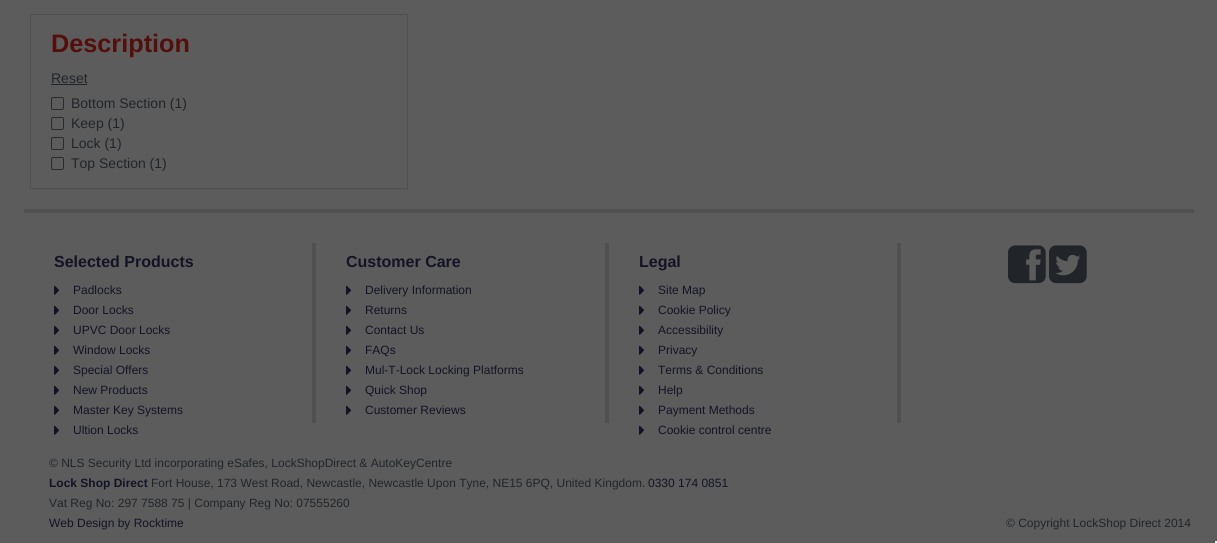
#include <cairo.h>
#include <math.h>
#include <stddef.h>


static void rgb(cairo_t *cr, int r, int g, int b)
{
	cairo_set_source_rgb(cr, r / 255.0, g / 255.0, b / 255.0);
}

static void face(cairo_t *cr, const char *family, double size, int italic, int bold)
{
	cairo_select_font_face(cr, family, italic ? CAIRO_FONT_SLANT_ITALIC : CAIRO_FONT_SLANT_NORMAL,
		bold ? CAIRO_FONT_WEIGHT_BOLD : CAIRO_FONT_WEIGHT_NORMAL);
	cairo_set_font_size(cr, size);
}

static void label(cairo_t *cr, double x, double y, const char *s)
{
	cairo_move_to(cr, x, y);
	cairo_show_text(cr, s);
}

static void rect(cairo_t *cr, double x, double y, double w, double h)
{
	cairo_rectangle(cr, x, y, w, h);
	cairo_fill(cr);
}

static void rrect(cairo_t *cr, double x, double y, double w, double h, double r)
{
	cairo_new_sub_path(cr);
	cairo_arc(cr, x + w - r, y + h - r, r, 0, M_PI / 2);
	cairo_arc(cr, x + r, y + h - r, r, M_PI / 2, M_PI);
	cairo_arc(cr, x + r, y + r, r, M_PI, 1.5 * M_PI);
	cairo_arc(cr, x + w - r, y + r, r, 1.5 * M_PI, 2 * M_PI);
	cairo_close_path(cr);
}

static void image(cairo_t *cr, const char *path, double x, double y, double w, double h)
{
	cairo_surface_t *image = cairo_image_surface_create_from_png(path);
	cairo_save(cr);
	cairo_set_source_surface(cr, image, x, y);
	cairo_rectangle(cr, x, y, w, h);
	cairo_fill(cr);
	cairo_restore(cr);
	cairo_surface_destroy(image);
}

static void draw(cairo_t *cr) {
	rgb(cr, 92, 92, 92);
	cairo_paint(cr);
	cairo_rectangle(cr, 30.5, 14.5, 377, 174);
	rgb(cr, 80, 80, 80);
	cairo_set_line_width(cr, 1);
	cairo_stroke(cr);
	face(cr, "Liberation Sans", 25.25, 0, 1);
	rgb(cr, 85, 14, 14);
	label(cr, 51, 52, "Description");
	face(cr, "Liberation Sans", 14, 0, 0);
	rgb(cr, 33, 37, 41);
	label(cr, 51, 83, "Reset");
	rect(cr, 51, 84, 36, 1);
	rrect(cr, 51.5, 97.5, 12, 12, 1.5);
	rgb(cr, 42, 42, 42);
	cairo_stroke(cr);
	rgb(cr, 33, 37, 41);
	label(cr, 71, 108, "Bottom Section (1)");
	rrect(cr, 51.5, 117.5, 12, 12, 1.5);
	rgb(cr, 42, 42, 42);
	cairo_stroke(cr);
	rgb(cr, 33, 37, 41);
	label(cr, 71, 128, "Keep (1)");
	rrect(cr, 51.5, 137.5, 12, 12, 1.5);
	rgb(cr, 42, 42, 42);
	cairo_stroke(cr);
	rgb(cr, 33, 37, 41);
	label(cr, 71, 148, "Lock (1)");
	rrect(cr, 51.5, 157.5, 12, 12, 1.5);
	rgb(cr, 42, 42, 42);
	cairo_stroke(cr);
	rgb(cr, 33, 37, 41);
	label(cr, 71, 168, "Top Section (1)");
	rgb(cr, 80, 80, 80);
	rect(cr, 24, 209, 1170, 4);
	rect(cr, 312, 243, 4, 180);
	face(cr, "Liberation Sans", 16, 0, 1);
	rgb(cr, 19, 19, 37);
	label(cr, 54, 267, "Selected Products");
	image(cr, "image0.png", 54, 285, 6, 10);
	face(cr, "Liberation Sans", 12, 0, 0);
	label(cr, 73, 294, "Padlocks");
	image(cr, "image0.png", 54, 305, 6, 10);
	label(cr, 73, 314, "Door Locks");
	image(cr, "image0.png", 54, 325, 6, 10);
	label(cr, 73, 334, "UPVC Door Locks");
	image(cr, "image0.png", 54, 345, 6, 10);
	label(cr, 73, 354, "Window Locks");
	image(cr, "image0.png", 54, 365, 6, 10);
	label(cr, 73, 374, "Special Offers");
	image(cr, "image0.png", 54, 385, 6, 10);
	label(cr, 73, 394, "New Products");
	image(cr, "image0.png", 54, 405, 6, 10);
	label(cr, 73, 414, "Master Key Systems");
	image(cr, "image0.png", 54, 425, 6, 10);
	label(cr, 73, 434, "Ultion Locks");
	rgb(cr, 80, 80, 80);
	rect(cr, 605, 243, 4, 180);
	face(cr, "Liberation Sans", 16, 0, 1);
	rgb(cr, 19, 19, 37);
	label(cr, 346, 267, "Customer Care");
	image(cr, "image0.png", 346, 285, 6, 10);
	face(cr, "Liberation Sans", 12, 0, 0);
	label(cr, 365, 294, "Delivery Information");
	image(cr, "image0.png", 346, 305, 6, 10);
	label(cr, 365, 314, "Returns");
	image(cr, "image0.png", 346, 325, 6, 10);
	label(cr, 365, 334, "Contact Us");
	image(cr, "image0.png", 346, 345, 6, 10);
	label(cr, 365, 354, "FAQs");
	image(cr, "image0.png", 346, 365, 6, 10);
	label(cr, 365, 374, "Mul-T-Lock Locking Platforms");
	image(cr, "image0.png", 346, 385, 6, 10);
	label(cr, 365, 394, "Quick Shop");
	image(cr, "image0.png", 346, 405, 6, 10);
	label(cr, 365, 414, "Customer Reviews");
	rgb(cr, 80, 80, 80);
	rect(cr, 897, 243, 4, 180);
	face(cr, "Liberation Sans", 16, 0, 1);
	rgb(cr, 19, 19, 37);
	label(cr, 639, 267, "Legal");
	image(cr, "image0.png", 639, 285, 6, 10);
	face(cr, "Liberation Sans", 12, 0, 0);
	label(cr, 658, 294, "Site Map");
	image(cr, "image0.png", 639, 305, 6, 10);
	label(cr, 658, 314, "Cookie Policy");
	image(cr, "image0.png", 639, 325, 6, 10);
	label(cr, 658, 334, "Accessibility");
	image(cr, "image0.png", 639, 345, 6, 10);
	label(cr, 658, 354, "Privacy");
	image(cr, "image0.png", 639, 365, 6, 10);
	label(cr, 658, 374, "Terms & Conditions");
	image(cr, "image0.png", 639, 385, 6, 10);
	label(cr, 658, 394, "Help");
	image(cr, "image0.png", 639, 405, 6, 10);
	label(cr, 658, 414, "Payment Methods");
	image(cr, "image0.png", 639, 425, 6, 10);
	label(cr, 658, 434, "Cookie control centre");
	image(cr, "image1.png", 1008, 245, 38, 39);
	image(cr, "image2.png", 1049, 245, 38, 39);
	rgb(cr, 33, 37, 41);
	label(cr, 49, 467, "© NLS Security Ltd incorporating eSafes, LockShopDirect & AutoKeyCentre");
	face(cr, "Liberation Sans", 12, 0, 1);
	rgb(cr, 19, 19, 37);
	label(cr, 49, 487, "Lock Shop Direct");
	face(cr, "Liberation Sans", 12, 0, 0);
	rgb(cr, 33, 37, 41);
	label(cr, 151, 487, "Fort House, 173 West Road, Newcastle, Newcastle Upon Tyne, NE15 6PQ, United Kingdom.");
	rgb(cr, 19, 19, 37);
	label(cr, 648, 487, "0330 174 0851");
	rgb(cr, 33, 37, 41);
	label(cr, 49, 507, "Vat Reg No: 297 7588 75 | Company Reg No: 07555260");
	rgb(cr, 19, 19, 37);
	label(cr, 49, 527, "Web Design by Rocktime");
	rgb(cr, 33, 37, 41);
	label(cr, 1006, 527, "© Copyright LockShop Direct 2014");
	rgb(cr, 245, 245, 245);
	rect(cr, 1215, 541, 2, 2);
}

int main(void) {
	cairo_surface_t *surface = cairo_image_surface_create(CAIRO_FORMAT_RGB24, 1217, 543);
	cairo_t *cr = cairo_create(surface);
	cairo_font_options_t *options = cairo_font_options_create();
	cairo_font_options_set_hint_metrics(options, CAIRO_HINT_METRICS_OFF);
	cairo_font_options_set_hint_style(options, CAIRO_HINT_STYLE_NONE);
	cairo_set_font_options(cr, options);
	cairo_set_miter_limit(cr, 4);
	draw(cr);
	cairo_surface_write_to_png(surface, "render.png");
	cairo_font_options_destroy(options);
	cairo_destroy(cr);
	cairo_surface_destroy(surface);
	return 0;
}
